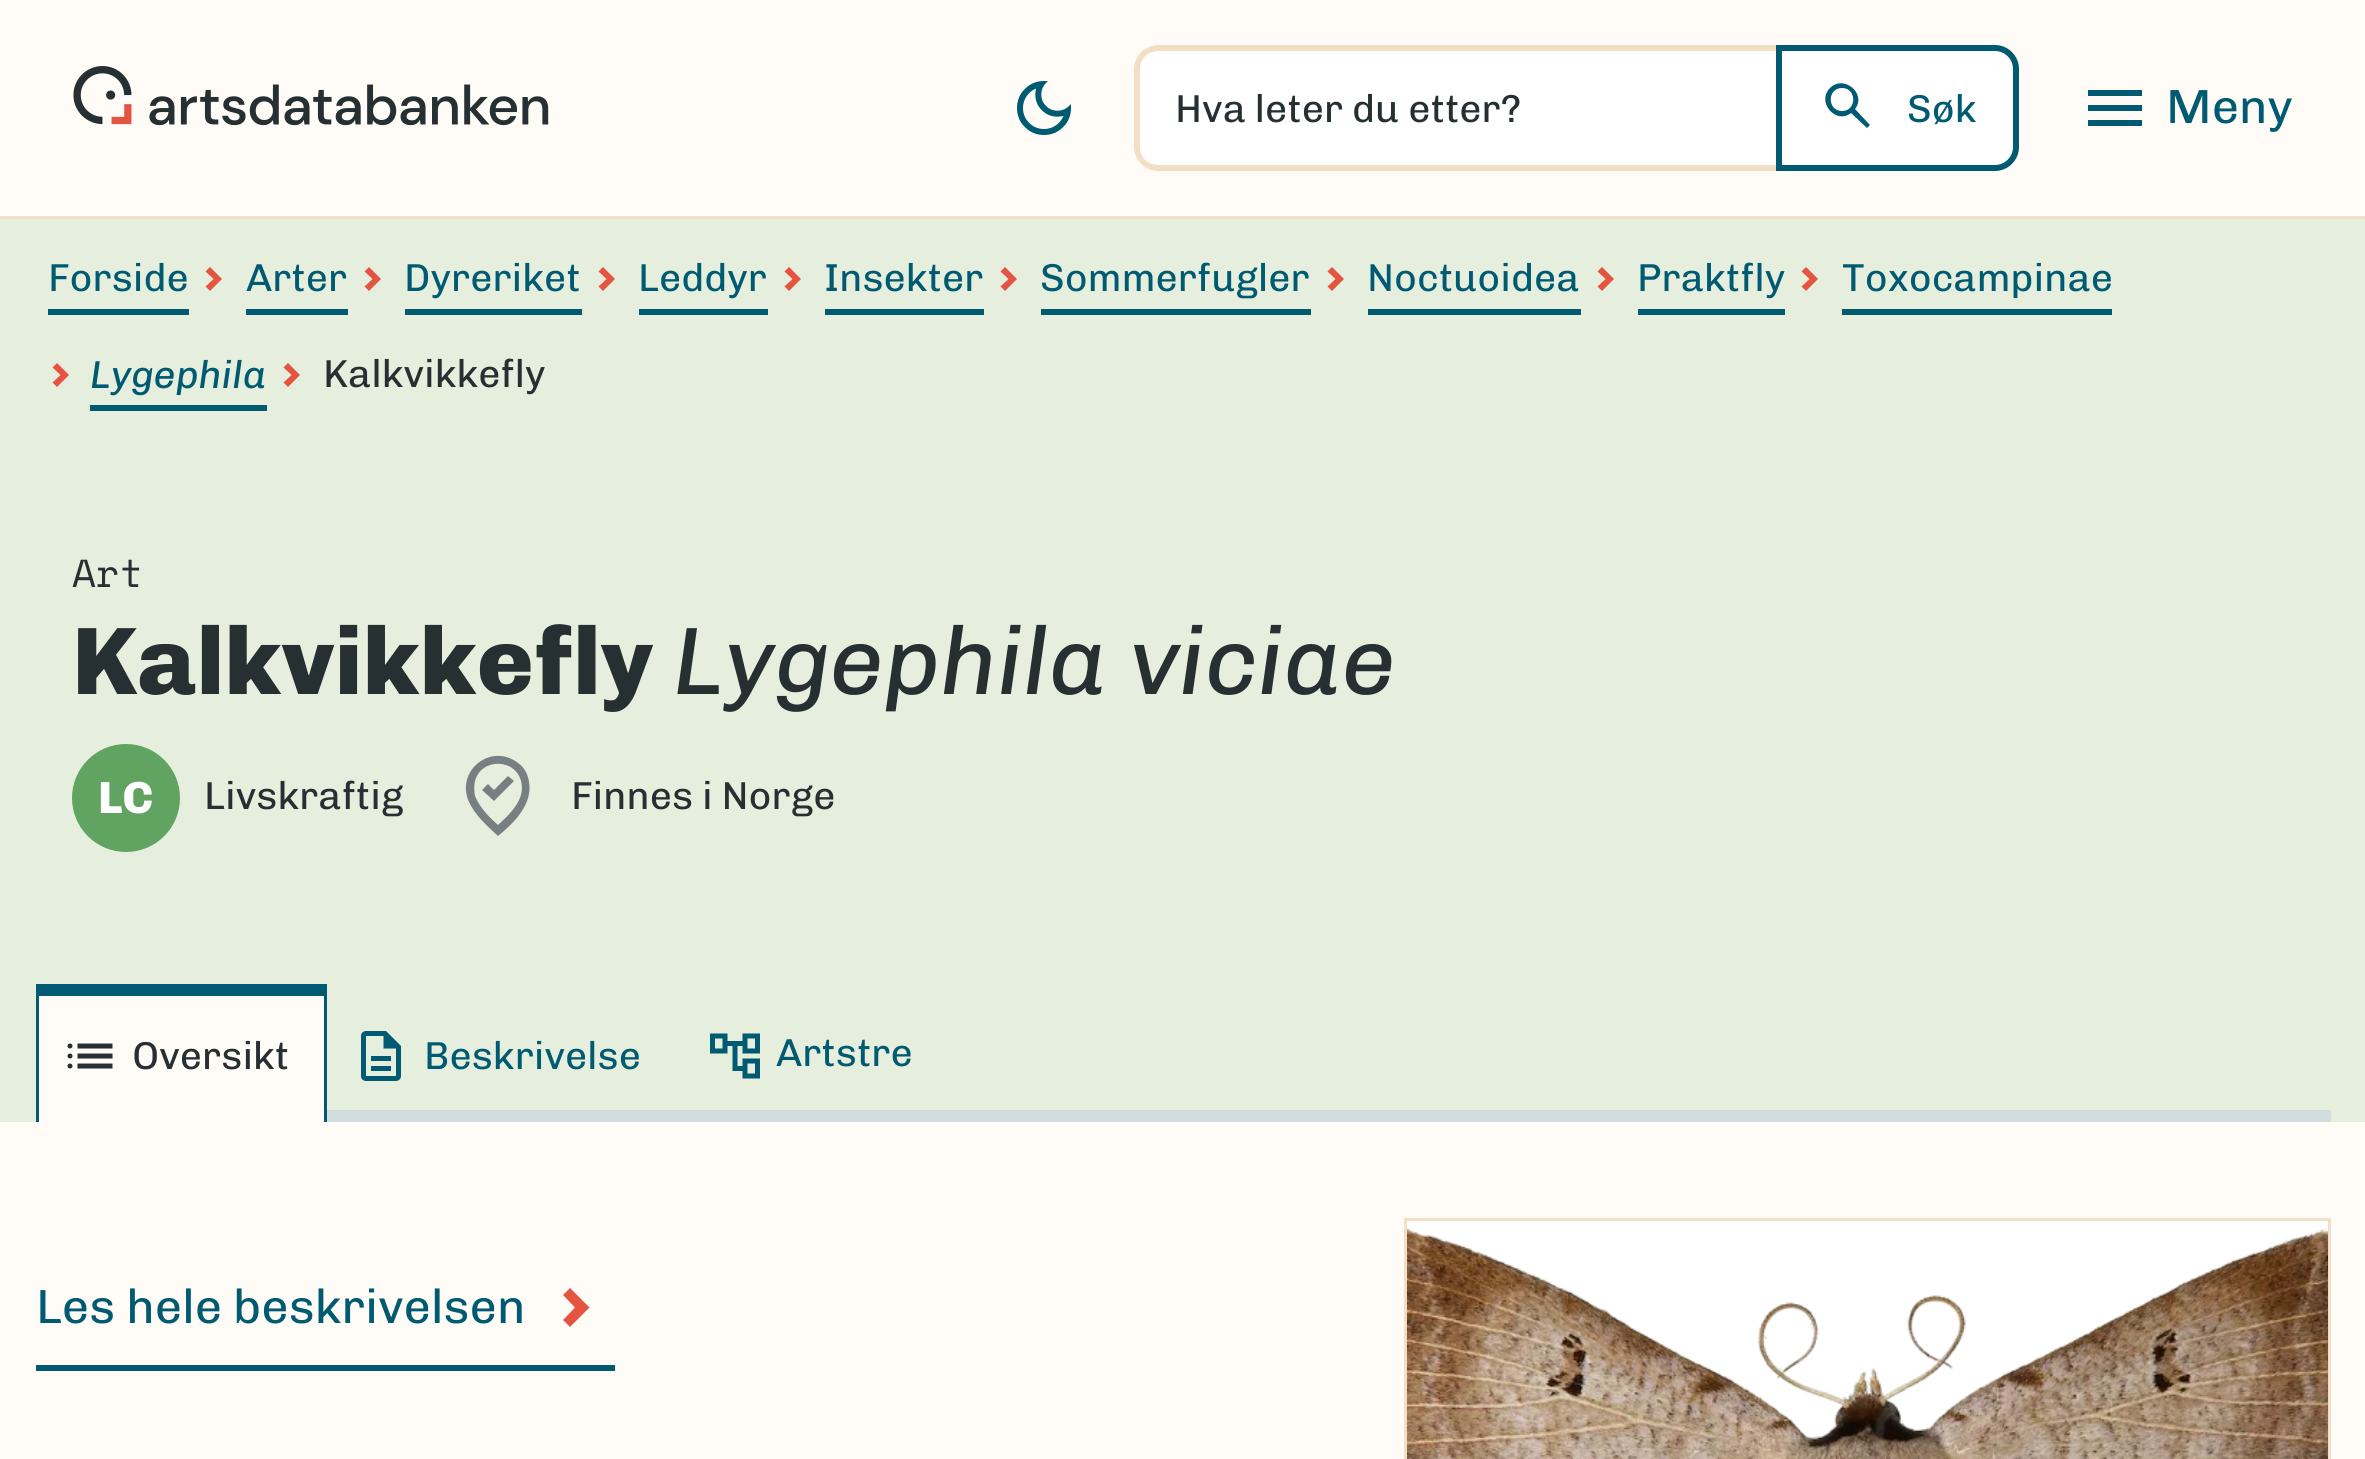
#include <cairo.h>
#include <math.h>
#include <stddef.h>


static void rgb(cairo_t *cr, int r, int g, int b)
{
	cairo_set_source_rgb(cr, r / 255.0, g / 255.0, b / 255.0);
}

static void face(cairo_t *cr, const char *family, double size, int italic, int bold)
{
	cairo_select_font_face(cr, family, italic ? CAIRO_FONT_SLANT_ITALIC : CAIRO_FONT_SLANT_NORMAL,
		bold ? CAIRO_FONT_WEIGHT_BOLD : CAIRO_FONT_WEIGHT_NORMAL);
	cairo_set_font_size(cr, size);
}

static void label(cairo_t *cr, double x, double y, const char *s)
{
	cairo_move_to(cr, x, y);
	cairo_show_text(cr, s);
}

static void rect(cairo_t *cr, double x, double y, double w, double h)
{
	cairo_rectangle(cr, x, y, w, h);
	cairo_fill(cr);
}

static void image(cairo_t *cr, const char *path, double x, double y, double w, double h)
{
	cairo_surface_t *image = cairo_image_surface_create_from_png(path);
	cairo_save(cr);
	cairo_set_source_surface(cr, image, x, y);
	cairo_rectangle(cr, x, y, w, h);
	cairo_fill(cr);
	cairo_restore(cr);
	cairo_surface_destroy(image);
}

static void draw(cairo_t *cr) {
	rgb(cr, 255, 252, 247);
	cairo_paint(cr);
	rgb(cr, 242, 223, 197);
	rect(cr, 0, 216, 2365, 3);
	image(cr, "image0.png", 73, 66, 476, 60);
	image(cr, "image1.png", 1017, 81, 54, 54);
	rgb(cr, 255, 255, 255);
	cairo_new_path(cr);
	cairo_move_to(cr, 1158, 45);
	cairo_line_to(cr, 1782, 45);
	cairo_line_to(cr, 1782, 171);
	cairo_line_to(cr, 1158, 171);
	cairo_curve_to(cr, 1144.5, 171, 1134, 160.5, 1134, 147);
	cairo_line_to(cr, 1134, 69);
	cairo_curve_to(cr, 1134, 55.5, 1144.5, 45, 1158, 45);
	cairo_close_path(cr);
	cairo_fill(cr);
	rgb(cr, 242, 223, 197);
	cairo_set_fill_rule(cr, CAIRO_FILL_RULE_EVEN_ODD);
	cairo_new_path(cr);
	cairo_move_to(cr, 1158, 45);
	cairo_line_to(cr, 1782, 45);
	cairo_line_to(cr, 1782, 171);
	cairo_line_to(cr, 1158, 171);
	cairo_curve_to(cr, 1145, 171, 1134, 160, 1134, 147);
	cairo_line_to(cr, 1134, 69);
	cairo_curve_to(cr, 1134, 56, 1145, 45, 1158, 45);
	cairo_close_path(cr);
	cairo_move_to(cr, 1158, 51);
	cairo_line_to(cr, 1782, 51);
	cairo_line_to(cr, 1782, 165);
	cairo_line_to(cr, 1158, 165);
	cairo_curve_to(cr, 1148, 165, 1140, 157, 1140, 147);
	cairo_line_to(cr, 1140, 69);
	cairo_curve_to(cr, 1140, 59, 1148, 51, 1158, 51);
	cairo_close_path(cr);
	cairo_fill(cr);
	face(cr, "Chivo", 39, 0, 0);
	rgb(cr, 38, 47, 49);
	label(cr, 1175, 122, "Hva leter du etter?");
	rgb(cr, 255, 255, 255);
	cairo_new_path(cr);
	cairo_move_to(cr, 1779, 48);
	cairo_line_to(cr, 1995, 48);
	cairo_curve_to(cr, 2006.5, 48, 2016, 57.5, 2016, 69);
	cairo_line_to(cr, 2016, 147);
	cairo_curve_to(cr, 2016, 158.5, 2006.5, 168, 1995, 168);
	cairo_line_to(cr, 1779, 168);
	cairo_close_path(cr);
	cairo_fill_preserve(cr);
	rgb(cr, 0, 90, 113);
	cairo_set_line_width(cr, 6);
	cairo_stroke(cr);
	cairo_set_fill_rule(cr, CAIRO_FILL_RULE_WINDING);
	cairo_new_path(cr);
	cairo_move_to(cr, 1867, 128);
	cairo_line_to(cr, 1851, 113);
	cairo_curve_to(cr, 1836, 125, 1816, 102, 1830, 88);
	cairo_curve_to(cr, 1844, 74, 1867, 94, 1855, 109);
	cairo_line_to(cr, 1870, 125);
	cairo_close_path(cr);
	cairo_move_to(cr, 1842, 111);
	cairo_curve_to(cr, 1857, 111, 1857, 88, 1842, 88);
	cairo_curve_to(cr, 1827, 88, 1827, 111, 1842, 111);
	cairo_fill(cr);
	label(cr, 1907, 122, "Søk");
	cairo_new_path(cr);
	cairo_move_to(cr, 2088, 126);
	cairo_line_to(cr, 2088, 120);
	cairo_line_to(cr, 2142, 120);
	cairo_line_to(cr, 2142, 126);
	cairo_close_path(cr);
	cairo_move_to(cr, 2088, 111);
	cairo_line_to(cr, 2088, 105);
	cairo_line_to(cr, 2142, 105);
	cairo_line_to(cr, 2142, 111);
	cairo_close_path(cr);
	cairo_move_to(cr, 2088, 96);
	cairo_line_to(cr, 2088, 90);
	cairo_line_to(cr, 2142, 90);
	cairo_line_to(cr, 2142, 96);
	cairo_close_path(cr);
	cairo_fill(cr);
	face(cr, "Chivo", 48, 0, 0);
	label(cr, 2166, 123, "Meny");
	rgb(cr, 230, 238, 221);
	rect(cr, 0, 219, 2365, 903);
	face(cr, "Chivo", 39, 0, 0);
	rgb(cr, 0, 90, 113);
	label(cr, 48, 291, "Forside");
	rect(cr, 48, 309, 141, 6);
	rgb(cr, 229, 84, 64);
	cairo_new_path(cr);
	cairo_move_to(cr, 222, 279);
	cairo_line_to(cr, 210, 291);
	cairo_line_to(cr, 205.5, 286.5);
	cairo_line_to(cr, 213.5, 279);
	cairo_line_to(cr, 205.5, 271.5);
	cairo_line_to(cr, 210, 267);
	cairo_close_path(cr);
	cairo_fill(cr);
	rgb(cr, 0, 90, 113);
	label(cr, 246, 291, "Arter");
	rect(cr, 246, 309, 102, 6);
	rgb(cr, 229, 84, 64);
	cairo_new_path(cr);
	cairo_move_to(cr, 381, 279);
	cairo_line_to(cr, 369, 291);
	cairo_line_to(cr, 364.5, 286.5);
	cairo_line_to(cr, 372.5, 279);
	cairo_line_to(cr, 364.5, 271.5);
	cairo_line_to(cr, 369, 267);
	cairo_close_path(cr);
	cairo_fill(cr);
	rgb(cr, 0, 90, 113);
	label(cr, 404, 291, "Dyreriket");
	rect(cr, 405, 309, 177, 6);
	rgb(cr, 229, 84, 64);
	cairo_new_path(cr);
	cairo_move_to(cr, 615, 279);
	cairo_line_to(cr, 603, 291);
	cairo_line_to(cr, 598.5, 286.5);
	cairo_line_to(cr, 606.5, 279);
	cairo_line_to(cr, 598.5, 271.5);
	cairo_line_to(cr, 603, 267);
	cairo_close_path(cr);
	cairo_fill(cr);
	rgb(cr, 0, 90, 113);
	label(cr, 638, 291, "Leddyr");
	rect(cr, 639, 309, 129, 6);
	rgb(cr, 229, 84, 64);
	cairo_new_path(cr);
	cairo_move_to(cr, 801, 279);
	cairo_line_to(cr, 789, 291);
	cairo_line_to(cr, 784.5, 286.5);
	cairo_line_to(cr, 792.5, 279);
	cairo_line_to(cr, 784.5, 271.5);
	cairo_line_to(cr, 789, 267);
	cairo_close_path(cr);
	cairo_fill(cr);
	rgb(cr, 0, 90, 113);
	label(cr, 824, 291, "Insekter");
	rect(cr, 825, 309, 159, 6);
	rgb(cr, 229, 84, 64);
	cairo_new_path(cr);
	cairo_move_to(cr, 1017, 279);
	cairo_line_to(cr, 1005, 291);
	cairo_line_to(cr, 1000.5, 286.5);
	cairo_line_to(cr, 1008.5, 279);
	cairo_line_to(cr, 1000.5, 271.5);
	cairo_line_to(cr, 1005, 267);
	cairo_close_path(cr);
	cairo_fill(cr);
	rgb(cr, 0, 90, 113);
	label(cr, 1040, 291, "Sommerfugler");
	rect(cr, 1041, 309, 270, 6);
	rgb(cr, 229, 84, 64);
	cairo_new_path(cr);
	cairo_move_to(cr, 1344, 279);
	cairo_line_to(cr, 1332, 291);
	cairo_line_to(cr, 1327.5, 286.5);
	cairo_line_to(cr, 1335.5, 279);
	cairo_line_to(cr, 1327.5, 271.5);
	cairo_line_to(cr, 1332, 267);
	cairo_close_path(cr);
	cairo_fill(cr);
	rgb(cr, 0, 90, 113);
	label(cr, 1367, 291, "Noctuoidea");
	rect(cr, 1368, 309, 213, 6);
	rgb(cr, 229, 84, 64);
	cairo_new_path(cr);
	cairo_move_to(cr, 1614, 279);
	cairo_line_to(cr, 1602, 291);
	cairo_line_to(cr, 1597.5, 286.5);
	cairo_line_to(cr, 1605.5, 279);
	cairo_line_to(cr, 1597.5, 271.5);
	cairo_line_to(cr, 1602, 267);
	cairo_close_path(cr);
	cairo_fill(cr);
	rgb(cr, 0, 90, 113);
	label(cr, 1637, 291, "Praktfly");
	rect(cr, 1638, 309, 147, 6);
	rgb(cr, 229, 84, 64);
	cairo_new_path(cr);
	cairo_move_to(cr, 1818, 279);
	cairo_line_to(cr, 1806, 291);
	cairo_line_to(cr, 1801.5, 286.5);
	cairo_line_to(cr, 1809.5, 279);
	cairo_line_to(cr, 1801.5, 271.5);
	cairo_line_to(cr, 1806, 267);
	cairo_close_path(cr);
	cairo_fill(cr);
	rgb(cr, 0, 90, 113);
	label(cr, 1842, 291, "Toxocampinae");
	rect(cr, 1842, 309, 270, 6);
	rgb(cr, 229, 84, 64);
	cairo_new_path(cr);
	cairo_move_to(cr, 69, 375);
	cairo_line_to(cr, 57, 387);
	cairo_line_to(cr, 52.5, 382.5);
	cairo_line_to(cr, 60.5, 375);
	cairo_line_to(cr, 52.5, 367.5);
	cairo_line_to(cr, 57, 363);
	cairo_close_path(cr);
	cairo_fill(cr);
	face(cr, "Chivo", 39, 1, 0);
	rgb(cr, 0, 90, 113);
	label(cr, 90, 388, "Lygephila");
	rect(cr, 90, 405, 177, 6);
	rgb(cr, 229, 84, 64);
	cairo_new_path(cr);
	cairo_move_to(cr, 300, 375);
	cairo_line_to(cr, 288, 387);
	cairo_line_to(cr, 283.5, 382.5);
	cairo_line_to(cr, 291.5, 375);
	cairo_line_to(cr, 283.5, 367.5);
	cairo_line_to(cr, 288, 363);
	cairo_close_path(cr);
	cairo_fill(cr);
	face(cr, "Chivo", 39, 0, 0);
	rgb(cr, 38, 47, 49);
	label(cr, 323, 387, "Kalkvikkefly");
	face(cr, "Space Mono", 39, 0, 0);
	label(cr, 72, 587, "Art");
	face(cr, "Chivo ExtraBold", 96, 0, 0);
	label(cr, 72, 694, "Kalkvikkefly");
	face(cr, "Chivo", 96, 1, 0);
	label(cr, 673, 694, "Lygephila viciae");
	rgb(cr, 97, 163, 96);
	cairo_new_path(cr);
	cairo_arc(cr, 126, 798, 52.5, 0, 2 * M_PI);
	cairo_fill_preserve(cr);
	cairo_set_line_width(cr, 3);
	cairo_stroke(cr);
	face(cr, "Chivo ExtraBold", 45, 0, 0);
	rgb(cr, 255, 255, 255);
	label(cr, 98, 813, "LC");
	face(cr, "Chivo", 39, 0, 0);
	rgb(cr, 38, 47, 49);
	label(cr, 204, 809, "Livskraftig");
	rgb(cr, 118, 128, 131);
	cairo_new_path(cr);
	cairo_move_to(cr, 494, 801);
	cairo_line_to(cr, 514, 781);
	cairo_line_to(cr, 508, 776);
	cairo_line_to(cr, 494, 790);
	cairo_line_to(cr, 488, 784);
	cairo_line_to(cr, 482, 790);
	cairo_close_path(cr);
	cairo_move_to(cr, 498, 825);
	cairo_curve_to(cr, 510, 814, 526, 799, 521, 781);
	cairo_curve_to(cr, 515, 758, 481, 758, 475, 781);
	cairo_curve_to(cr, 474, 786, 474, 791, 475, 796);
	cairo_curve_to(cr, 480, 808, 489, 817, 498, 825);
	cairo_move_to(cr, 498, 836);
	cairo_curve_to(cr, 487, 826, 475, 815, 469, 802);
	cairo_curve_to(cr, 455, 771, 491, 742, 518, 763);
	cairo_curve_to(cr, 524, 767, 528, 774, 529, 782);
	cairo_curve_to(cr, 533, 804, 514, 823, 498, 836);
	cairo_fill(cr);
	rgb(cr, 38, 47, 49);
	label(cr, 571, 809, "Finnes i Norge");
	rgb(cr, 210, 221, 224);
	rect(cr, 327, 1110, 2004, 12);
	rgb(cr, 255, 252, 247);
	rect(cr, 39, 996, 285, 126);
	rgb(cr, 0, 90, 113);
	rect(cr, 39, 984, 285, 12);
	rect(cr, 324, 984, 3, 138);
	rect(cr, 36, 984, 3, 138);
	image(cr, "image2.png", 67, 1043, 46, 26);
	rgb(cr, 38, 47, 49);
	label(cr, 132, 1069, "Oversikt");
	image(cr, "image3.png", 361, 1031, 40, 50);
	rgb(cr, 0, 90, 113);
	label(cr, 424, 1069, "Beskrivelse");
	image(cr, "image4.png", 710, 1033, 50, 46);
	label(cr, 776, 1066, "Artstre");
	face(cr, "Chivo", 48, 0, 0);
	label(cr, 36, 1323, "Les hele beskrivelsen");
	rgb(cr, 229, 84, 64);
	cairo_new_path(cr);
	cairo_move_to(cr, 589.5, 1307.5);
	cairo_line_to(cr, 570, 1327);
	cairo_line_to(cr, 563, 1320);
	cairo_line_to(cr, 575, 1307.5);
	cairo_line_to(cr, 563, 1295);
	cairo_line_to(cr, 570, 1288);
	cairo_close_path(cr);
	cairo_fill(cr);
	rgb(cr, 0, 90, 113);
	rect(cr, 36, 1365, 579, 6);
	rgb(cr, 255, 255, 255);
	rect(cr, 1407, 1221, 921, 218);
	cairo_rectangle(cr, 1405.5, 1219.5, 924, 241);
	rgb(cr, 242, 223, 197);
	cairo_stroke(cr);
	image(cr, "image5.png", 1407, 1228, 921, 231);
}

int main(void) {
	cairo_surface_t *surface = cairo_image_surface_create(CAIRO_FORMAT_RGB24, 2365, 1459);
	cairo_t *cr = cairo_create(surface);
	cairo_font_options_t *options = cairo_font_options_create();
	cairo_font_options_set_hint_metrics(options, CAIRO_HINT_METRICS_OFF);
	cairo_font_options_set_hint_style(options, CAIRO_HINT_STYLE_NONE);
	cairo_set_font_options(cr, options);
	cairo_set_miter_limit(cr, 4);
	draw(cr);
	cairo_surface_write_to_png(surface, "render.png");
	cairo_font_options_destroy(options);
	cairo_destroy(cr);
	cairo_surface_destroy(surface);
	return 0;
}
